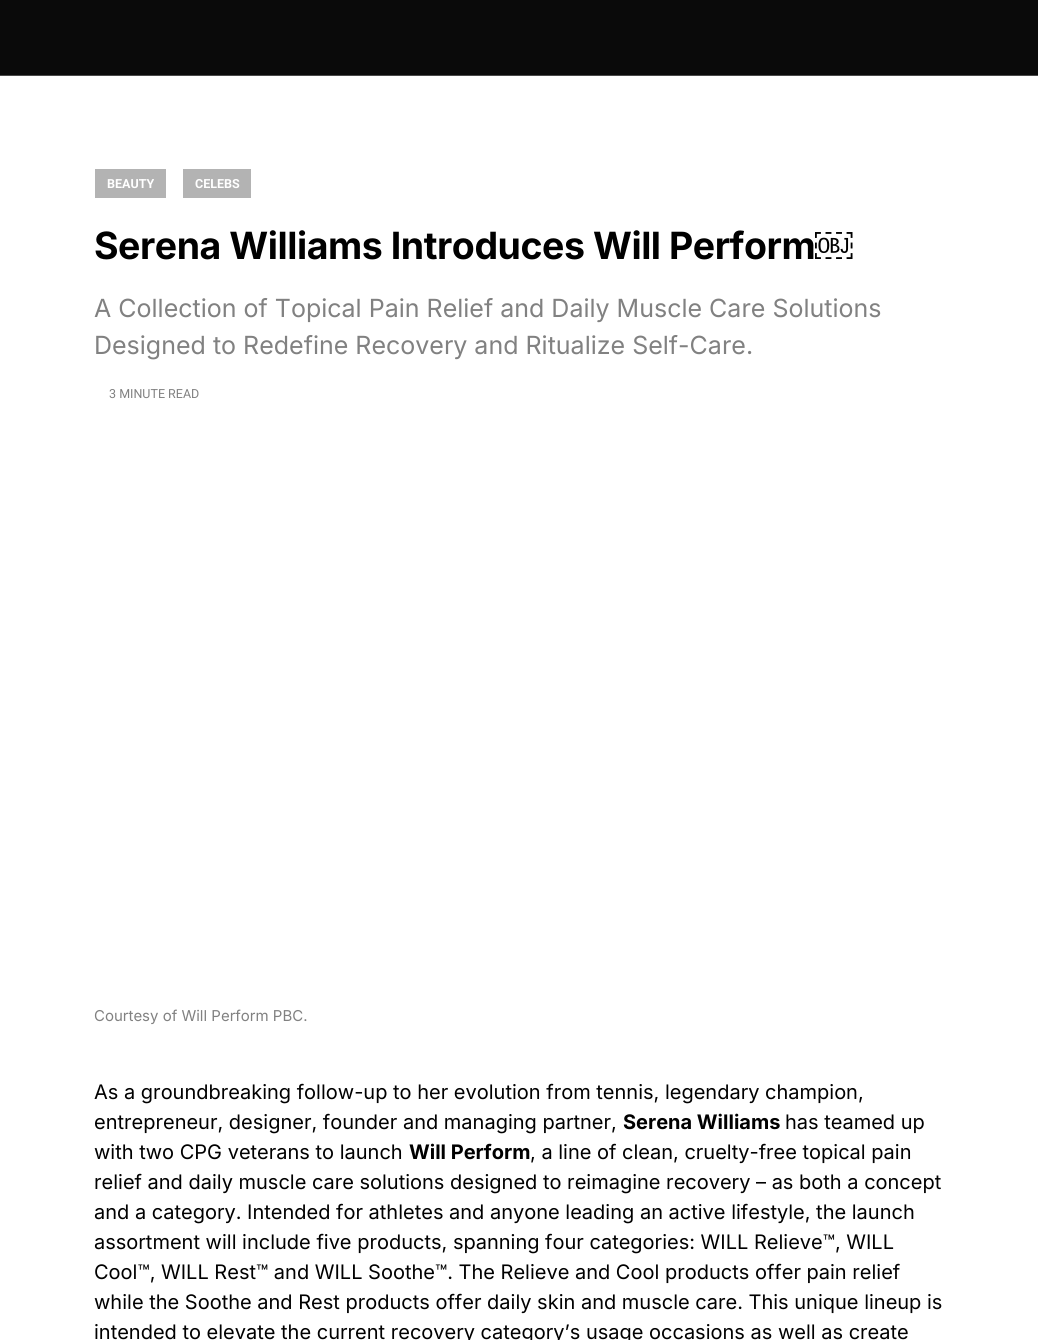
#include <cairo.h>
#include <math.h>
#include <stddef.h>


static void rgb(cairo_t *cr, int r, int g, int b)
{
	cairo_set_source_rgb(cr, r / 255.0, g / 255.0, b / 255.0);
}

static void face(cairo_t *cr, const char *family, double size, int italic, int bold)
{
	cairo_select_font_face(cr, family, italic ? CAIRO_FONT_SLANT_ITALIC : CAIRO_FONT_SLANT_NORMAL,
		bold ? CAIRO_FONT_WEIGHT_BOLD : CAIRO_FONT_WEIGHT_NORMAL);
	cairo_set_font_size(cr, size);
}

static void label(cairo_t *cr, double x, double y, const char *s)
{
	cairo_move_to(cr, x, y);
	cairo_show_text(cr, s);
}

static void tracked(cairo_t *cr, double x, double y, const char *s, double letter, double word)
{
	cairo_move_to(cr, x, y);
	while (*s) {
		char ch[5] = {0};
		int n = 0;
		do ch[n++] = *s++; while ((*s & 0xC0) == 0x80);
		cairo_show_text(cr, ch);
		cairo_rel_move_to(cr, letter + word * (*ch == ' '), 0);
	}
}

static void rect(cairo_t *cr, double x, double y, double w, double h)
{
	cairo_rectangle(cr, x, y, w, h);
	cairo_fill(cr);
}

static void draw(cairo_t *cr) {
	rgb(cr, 255, 255, 255);
	cairo_paint(cr);
	rgb(cr, 10, 10, 10);
	rect(cr, 0, 0, 1038, 75);
	rgb(cr, 73, 73, 73);
	rect(cr, 0, 75, 1038, 1);
	rgb(cr, 179, 179, 179);
	rect(cr, 95, 169, 71, 29);
	face(cr, "Roboto", 12.5, 0, 1);
	rgb(cr, 255, 255, 255);
	label(cr, 107, 188, "BEAUTY");
	rgb(cr, 179, 179, 179);
	rect(cr, 183, 169, 68, 29);
	rgb(cr, 255, 255, 255);
	label(cr, 195, 188, "CELEBS");
	face(cr, "Inter", 37.5, 0, 1);
	rgb(cr, 0, 0, 0);
	tracked(cr, 94, 259, "Serena Williams Introduces Will Perform", -0.45, 0);
	face(cr, "Liberation Sans", 37.5, 0, 1);
	tracked(cr, 815, 259, "￼", -0.45, 0);
	face(cr, "Inter", 25, 0, 0);
	rgb(cr, 129, 129, 129);
	label(cr, 94, 317, "A Collection of Topical Pain Relief and Daily Muscle Care Solutions");
	label(cr, 94, 354, "Designed to Redefine Recovery and Ritualize Self-Care.");
	face(cr, "Roboto", 12.5, 0, 0);
	label(cr, 109, 398, "3 MINUTE READ");
	face(cr, "Inter", 15, 0, 0);
	label(cr, 94, 1021, "Courtesy of Will Perform PBC.");
	face(cr, "Inter", 20, 0, 0);
	rgb(cr, 0, 0, 0);
	label(cr, 94, 1099, "As a groundbreaking follow-up to her evolution from tennis, legendary champion,");
	label(cr, 94, 1129, "entrepreneur, designer, founder and managing partner,");
	face(cr, "Inter", 20, 0, 1);
	label(cr, 623, 1129, "Serena Williams");
	face(cr, "Inter", 20, 0, 0);
	label(cr, 785, 1129, "has teamed up");
	label(cr, 94, 1159, "with two CPG veterans to launch");
	face(cr, "Inter", 20, 0, 1);
	label(cr, 409, 1159, "Will Perform");
	face(cr, "Inter", 20, 0, 0);
	label(cr, 530, 1159, ", a line of clean, cruelty-free topical pain");
	label(cr, 94, 1189, "relief and daily muscle care solutions designed to reimagine recovery – as both a concept");
	label(cr, 94, 1219, "and a category. Intended for athletes and anyone leading an active lifestyle, the launch");
	label(cr, 94, 1249, "assortment will include five products, spanning four categories: WILL Relieve™, WILL");
	label(cr, 94, 1279, "Cool™, WILL Rest™ and WILL Soothe™. The Relieve and Cool products offer pain relief");
	label(cr, 94, 1309, "while the Soothe and Rest products offer daily skin and muscle care. This unique lineup is");
	label(cr, 94, 1339, "intended to elevate the current recovery category’s usage occasions as well as create");
}

int main(void) {
	cairo_surface_t *surface = cairo_image_surface_create(CAIRO_FORMAT_RGB24, 1038, 1340);
	cairo_t *cr = cairo_create(surface);
	cairo_font_options_t *options = cairo_font_options_create();
	cairo_font_options_set_hint_metrics(options, CAIRO_HINT_METRICS_OFF);
	cairo_font_options_set_hint_style(options, CAIRO_HINT_STYLE_NONE);
	cairo_set_font_options(cr, options);
	cairo_set_miter_limit(cr, 4);
	draw(cr);
	cairo_surface_write_to_png(surface, "render.png");
	cairo_font_options_destroy(options);
	cairo_destroy(cr);
	cairo_surface_destroy(surface);
	return 0;
}
